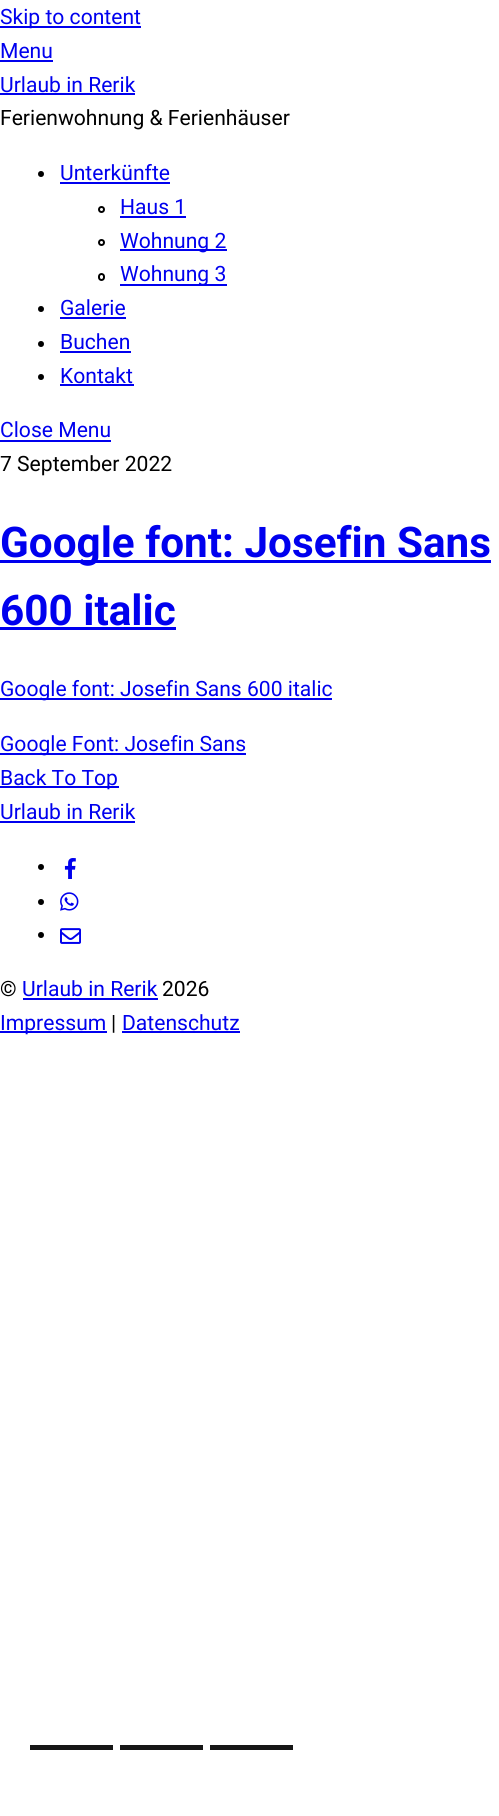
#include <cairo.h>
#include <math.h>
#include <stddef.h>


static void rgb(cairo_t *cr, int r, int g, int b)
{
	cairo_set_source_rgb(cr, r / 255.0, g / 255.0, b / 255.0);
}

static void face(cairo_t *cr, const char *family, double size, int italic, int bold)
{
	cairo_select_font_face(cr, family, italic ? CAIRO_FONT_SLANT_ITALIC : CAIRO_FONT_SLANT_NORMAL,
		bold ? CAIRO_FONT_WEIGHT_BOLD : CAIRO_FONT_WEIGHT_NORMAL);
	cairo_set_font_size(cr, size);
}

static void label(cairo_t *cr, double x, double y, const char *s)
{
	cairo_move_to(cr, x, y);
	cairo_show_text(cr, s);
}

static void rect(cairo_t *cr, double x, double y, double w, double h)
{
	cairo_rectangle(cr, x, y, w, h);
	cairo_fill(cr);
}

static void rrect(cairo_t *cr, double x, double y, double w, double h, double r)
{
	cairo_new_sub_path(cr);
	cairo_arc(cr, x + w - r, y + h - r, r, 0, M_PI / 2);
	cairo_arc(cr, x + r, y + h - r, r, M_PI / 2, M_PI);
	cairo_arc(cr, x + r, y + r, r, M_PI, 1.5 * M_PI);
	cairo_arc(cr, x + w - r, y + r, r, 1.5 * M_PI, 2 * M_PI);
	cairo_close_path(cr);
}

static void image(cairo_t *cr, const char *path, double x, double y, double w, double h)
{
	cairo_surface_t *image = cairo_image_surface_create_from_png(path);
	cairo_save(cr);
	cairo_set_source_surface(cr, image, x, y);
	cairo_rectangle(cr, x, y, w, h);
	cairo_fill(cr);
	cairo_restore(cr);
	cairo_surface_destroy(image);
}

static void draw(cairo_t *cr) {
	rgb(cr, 255, 255, 255);
	cairo_paint(cr);
	rgb(cr, 0, 0, 238);
	rect(cr, 0, 26, 141, 2);
	face(cr, "Roboto", 21.1, 0, 0);
	label(cr, 0, 24, "Skip to content");
	label(cr, 0, 58, "Menu");
	rect(cr, 0, 60, 53, 2);
	label(cr, 0, 92, "Urlaub in Rerik");
	rect(cr, 0, 93, 135, 2);
	rgb(cr, 0, 0, 0);
	label(cr, 0, 125, "Ferienwohnung & Ferienhäuser");
	cairo_new_path(cr);
	cairo_arc(cr, 41, 174, 3, 0, 2 * M_PI);
	cairo_fill(cr);
	rgb(cr, 0, 0, 238);
	label(cr, 60, 180, "Unterkünfte");
	rect(cr, 60, 182, 110, 2);
	cairo_new_path(cr);
	cairo_arc(cr, 101.5, 209.5, 2.5, 0, 2 * M_PI);
	rgb(cr, 0, 0, 0);
	cairo_stroke(cr);
	rgb(cr, 0, 0, 238);
	label(cr, 120, 214, "Haus 1");
	rect(cr, 120, 216, 66, 2);
	cairo_new_path(cr);
	cairo_arc(cr, 101.5, 242.5, 2.5, 0, 2 * M_PI);
	rgb(cr, 0, 0, 0);
	cairo_stroke(cr);
	rgb(cr, 0, 0, 238);
	rect(cr, 120, 249, 107, 2);
	label(cr, 120, 248, "Wohnung 2");
	rrect(cr, 99, 274, 5, 6, 2.5);
	rgb(cr, 0, 0, 0);
	cairo_stroke(cr);
	rgb(cr, 0, 0, 238);
	rect(cr, 120, 284, 107, 2);
	label(cr, 120, 281, "Wohnung 3");
	rgb(cr, 0, 0, 0);
	cairo_new_path(cr);
	cairo_arc(cr, 41, 309, 3, 0, 2 * M_PI);
	cairo_fill(cr);
	rgb(cr, 0, 0, 238);
	label(cr, 60, 315, "Galerie");
	rect(cr, 60, 317, 66, 2);
	rgb(cr, 0, 0, 0);
	cairo_new_path(cr);
	cairo_arc(cr, 41, 344, 3, 0, 2 * M_PI);
	cairo_fill(cr);
	rgb(cr, 0, 0, 238);
	label(cr, 60, 349, "Buchen");
	rect(cr, 60, 351, 71, 2);
	rgb(cr, 0, 0, 0);
	cairo_new_path(cr);
	cairo_arc(cr, 41, 377, 3, 0, 2 * M_PI);
	cairo_fill(cr);
	rgb(cr, 0, 0, 238);
	label(cr, 60, 383, "Kontakt");
	rect(cr, 60, 384, 74, 2);
	label(cr, 0, 437, "Close Menu");
	rect(cr, 0, 440, 111, 2);
	rgb(cr, 0, 0, 0);
	label(cr, 0, 471, "7 September 2022");
	rgb(cr, 0, 0, 238);
	rect(cr, 0, 560, 491, 3);
	face(cr, "Roboto", 42.25, 0, 1);
	label(cr, 0, 557, "Google font: Josefin Sans");
	label(cr, 0, 625, "600 italic");
	rect(cr, 0, 627, 176, 3);
	rect(cr, 0, 698, 332, 2);
	face(cr, "Roboto", 21.1, 0, 0);
	label(cr, 0, 696, "Google font: Josefin Sans 600 italic");
	rect(cr, 0, 753, 246, 2);
	label(cr, 0, 751, "Google Font: Josefin Sans");
	rect(cr, 0, 786, 119, 2);
	label(cr, 0, 785, "Back To Top");
	label(cr, 0, 819, "Urlaub in Rerik");
	rect(cr, 0, 821, 135, 2);
	rgb(cr, 0, 0, 0);
	cairo_new_path(cr);
	cairo_arc(cr, 41, 867, 3, 0, 2 * M_PI);
	cairo_fill(cr);
	image(cr, "image0.png", 64, 858, 12, 21);
	cairo_arc(cr, 41, 902, 3, 0, 2 * M_PI);
	cairo_fill(cr);
	image(cr, "image1.png", 60, 892, 19, 19);
	cairo_arc(cr, 41, 935, 3, 0, 2 * M_PI);
	cairo_fill(cr);
	image(cr, "image2.png", 60, 928, 21, 16);
	label(cr, 0, 996, "©");
	rgb(cr, 0, 0, 238);
	label(cr, 22, 996, "Urlaub in Rerik");
	rect(cr, 23, 998, 135, 2);
	rgb(cr, 0, 0, 0);
	label(cr, 162, 996, "2026");
	rgb(cr, 0, 0, 238);
	rect(cr, 0, 1031, 107, 2);
	label(cr, 0, 1030, "Impressum");
	rgb(cr, 0, 0, 0);
	label(cr, 111, 1030, "|");
	rgb(cr, 0, 0, 238);
	label(cr, 122, 1030, "Datenschutz");
	rect(cr, 122, 1031, 118, 2);
	rgb(cr, 22, 22, 22);
	rect(cr, 30, 1745, 83, 5);
	rect(cr, 120, 1745, 83, 5);
	rect(cr, 210, 1745, 83, 5);
}

int main(void) {
	cairo_surface_t *surface = cairo_image_surface_create(CAIRO_FORMAT_RGB24, 499, 1816);
	cairo_t *cr = cairo_create(surface);
	cairo_font_options_t *options = cairo_font_options_create();
	cairo_font_options_set_hint_metrics(options, CAIRO_HINT_METRICS_OFF);
	cairo_font_options_set_hint_style(options, CAIRO_HINT_STYLE_NONE);
	cairo_set_font_options(cr, options);
	cairo_set_miter_limit(cr, 4);
	draw(cr);
	cairo_surface_write_to_png(surface, "render.png");
	cairo_font_options_destroy(options);
	cairo_destroy(cr);
	cairo_surface_destroy(surface);
	return 0;
}
